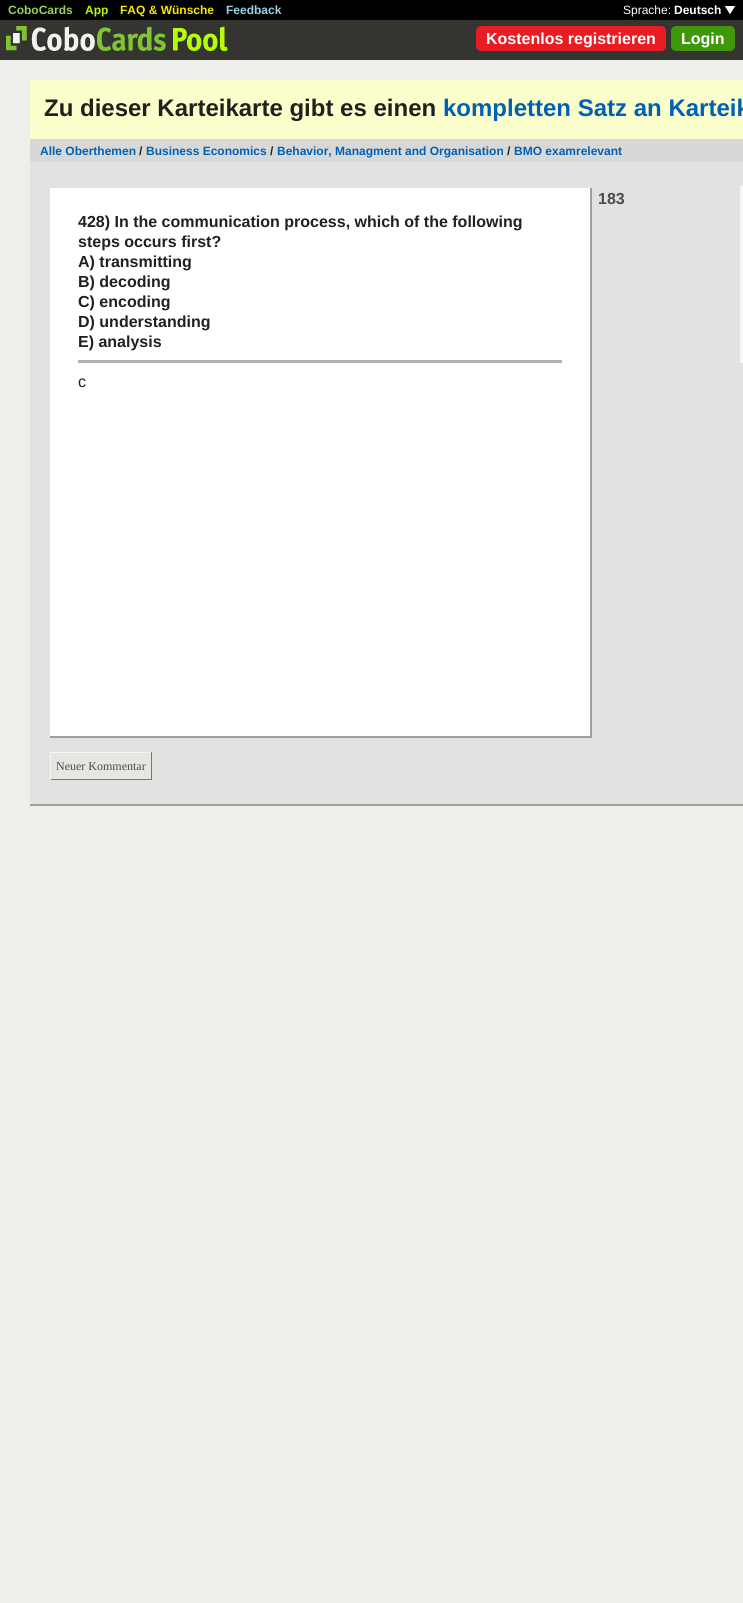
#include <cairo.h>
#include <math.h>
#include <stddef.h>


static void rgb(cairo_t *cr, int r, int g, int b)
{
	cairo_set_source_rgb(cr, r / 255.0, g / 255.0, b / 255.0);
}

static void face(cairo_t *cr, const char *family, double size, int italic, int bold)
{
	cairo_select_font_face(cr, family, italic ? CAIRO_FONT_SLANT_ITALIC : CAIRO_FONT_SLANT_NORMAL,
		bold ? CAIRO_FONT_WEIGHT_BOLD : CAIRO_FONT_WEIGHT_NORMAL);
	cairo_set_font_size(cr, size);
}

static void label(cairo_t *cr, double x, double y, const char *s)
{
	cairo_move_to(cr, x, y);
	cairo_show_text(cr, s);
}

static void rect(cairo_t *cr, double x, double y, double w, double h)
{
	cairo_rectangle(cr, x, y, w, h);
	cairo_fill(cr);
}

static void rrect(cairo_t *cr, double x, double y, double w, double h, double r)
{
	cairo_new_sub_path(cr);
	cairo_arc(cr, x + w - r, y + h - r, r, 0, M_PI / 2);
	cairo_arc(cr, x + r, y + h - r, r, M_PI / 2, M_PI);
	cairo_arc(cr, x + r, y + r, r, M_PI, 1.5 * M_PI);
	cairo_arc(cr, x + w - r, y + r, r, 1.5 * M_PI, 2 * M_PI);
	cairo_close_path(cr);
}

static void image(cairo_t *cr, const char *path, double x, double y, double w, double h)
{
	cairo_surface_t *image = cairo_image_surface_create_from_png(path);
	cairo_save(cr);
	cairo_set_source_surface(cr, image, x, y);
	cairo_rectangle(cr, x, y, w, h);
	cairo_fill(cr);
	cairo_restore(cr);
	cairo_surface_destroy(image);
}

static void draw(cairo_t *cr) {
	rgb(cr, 238, 239, 235);
	cairo_paint(cr);
	rgb(cr, 52, 53, 48);
	rect(cr, 0, 20, 743, 40);
	rgb(cr, 0, 0, 0);
	rect(cr, 0, 0, 743, 20);
	face(cr, "Liberation Sans", 12, 0, 1);
	rgb(cr, 151, 207, 88);
	label(cr, 8, 14, "CoboCards");
	rgb(cr, 180, 255, 0);
	label(cr, 85, 14, "App");
	rgb(cr, 249, 232, 0);
	label(cr, 120, 14, "FAQ & Wünsche");
	rgb(cr, 159, 207, 231);
	label(cr, 226, 14, "Feedback");
	face(cr, "Liberation Sans", 12, 0, 0);
	rgb(cr, 255, 255, 255);
	label(cr, 623, 14, "Sprache:");
	face(cr, "Liberation Sans", 12, 0, 1);
	label(cr, 674, 14, "Deutsch");
	image(cr, "image0.png", 725, 6, 10, 8);
	image(cr, "image1.png", 6, 26, 222, 25);
	rgb(cr, 233, 28, 36);
	rrect(cr, 476, 26, 190, 25, 5);
	cairo_fill(cr);
	face(cr, "Liberation Sans", 16, 0, 1);
	rgb(cr, 255, 255, 255);
	label(cr, 486, 44, "Kostenlos registrieren");
	rgb(cr, 64, 151, 11);
	rrect(cr, 671, 26, 64, 25, 5);
	cairo_fill(cr);
	rgb(cr, 255, 255, 255);
	label(cr, 681, 44, "Login");
	rgb(cr, 226, 227, 224);
	rect(cr, 30, 162, 713, 642);
	rgb(cr, 159, 159, 159);
	rect(cr, 30, 804, 713, 2);
	rgb(cr, 251, 255, 204);
	rect(cr, 30, 80, 713, 59);
	face(cr, "Liberation Sans", 24, 0, 1);
	rgb(cr, 33, 32, 28);
	label(cr, 44, 116, "Zu dieser Karteikarte gibt es einen");
	rgb(cr, 0, 96, 182);
	label(cr, 443, 116, "kompletten Satz an Karteik");
	rgb(cr, 216, 217, 215);
	rect(cr, 30, 139, 713, 23);
	face(cr, "Liberation Sans", 12, 0, 1);
	rgb(cr, 0, 96, 182);
	label(cr, 40, 155, "Alle Oberthemen");
	rgb(cr, 33, 32, 28);
	label(cr, 139, 155, "/");
	rgb(cr, 0, 96, 182);
	label(cr, 146, 155, "Business Economics");
	rgb(cr, 33, 32, 28);
	label(cr, 270, 155, "/");
	rgb(cr, 0, 96, 182);
	label(cr, 277, 155, "Behavior, Managment and Organisation");
	rgb(cr, 33, 32, 28);
	label(cr, 507, 155, "/");
	rgb(cr, 0, 96, 182);
	label(cr, 514, 155, "BMO examrelevant");
	rgb(cr, 255, 255, 255);
	rect(cr, 50, 188, 540, 548);
	rgb(cr, 159, 159, 159);
	rect(cr, 590, 188, 2, 550);
	rect(cr, 50, 736, 542, 2);
	face(cr, "Liberation Sans", 16, 0, 1);
	rgb(cr, 75, 76, 73);
	label(cr, 598, 204, "183");
	rgb(cr, 33, 32, 28);
	label(cr, 78, 227, "428) In the communication process, which of the following");
	label(cr, 78, 247, "steps occurs first?");
	label(cr, 78, 267, "A) transmitting");
	label(cr, 78, 287, "B) decoding");
	label(cr, 78, 307, "C) encoding");
	label(cr, 78, 327, "D) understanding");
	label(cr, 78, 347, "E) analysis");
	rgb(cr, 179, 179, 179);
	rect(cr, 78, 360, 484, 3);
	face(cr, "Liberation Sans", 16, 0, 0);
	rgb(cr, 33, 32, 28);
	label(cr, 78, 387, "c");
	rgb(cr, 231, 230, 227);
	rect(cr, 51, 753, 100, 26);
	rgb(cr, 246, 246, 246);
	rect(cr, 50, 752, 102, 1);
	rgb(cr, 119, 120, 118);
	rect(cr, 151, 752, 1, 28);
	rect(cr, 50, 779, 102, 1);
	rgb(cr, 246, 246, 246);
	rect(cr, 50, 752, 1, 28);
	face(cr, "Liberation Serif", 12, 0, 0);
	rgb(cr, 75, 76, 73);
	label(cr, 56, 770, "Neuer Kommentar");
	rgb(cr, 246, 246, 246);
	rect(cr, 740, 186, 3, 177);
}

int main(void) {
	cairo_surface_t *surface = cairo_image_surface_create(CAIRO_FORMAT_RGB24, 743, 1603);
	cairo_t *cr = cairo_create(surface);
	cairo_font_options_t *options = cairo_font_options_create();
	cairo_font_options_set_hint_metrics(options, CAIRO_HINT_METRICS_OFF);
	cairo_font_options_set_hint_style(options, CAIRO_HINT_STYLE_NONE);
	cairo_set_font_options(cr, options);
	cairo_set_miter_limit(cr, 4);
	draw(cr);
	cairo_surface_write_to_png(surface, "render.png");
	cairo_font_options_destroy(options);
	cairo_destroy(cr);
	cairo_surface_destroy(surface);
	return 0;
}
